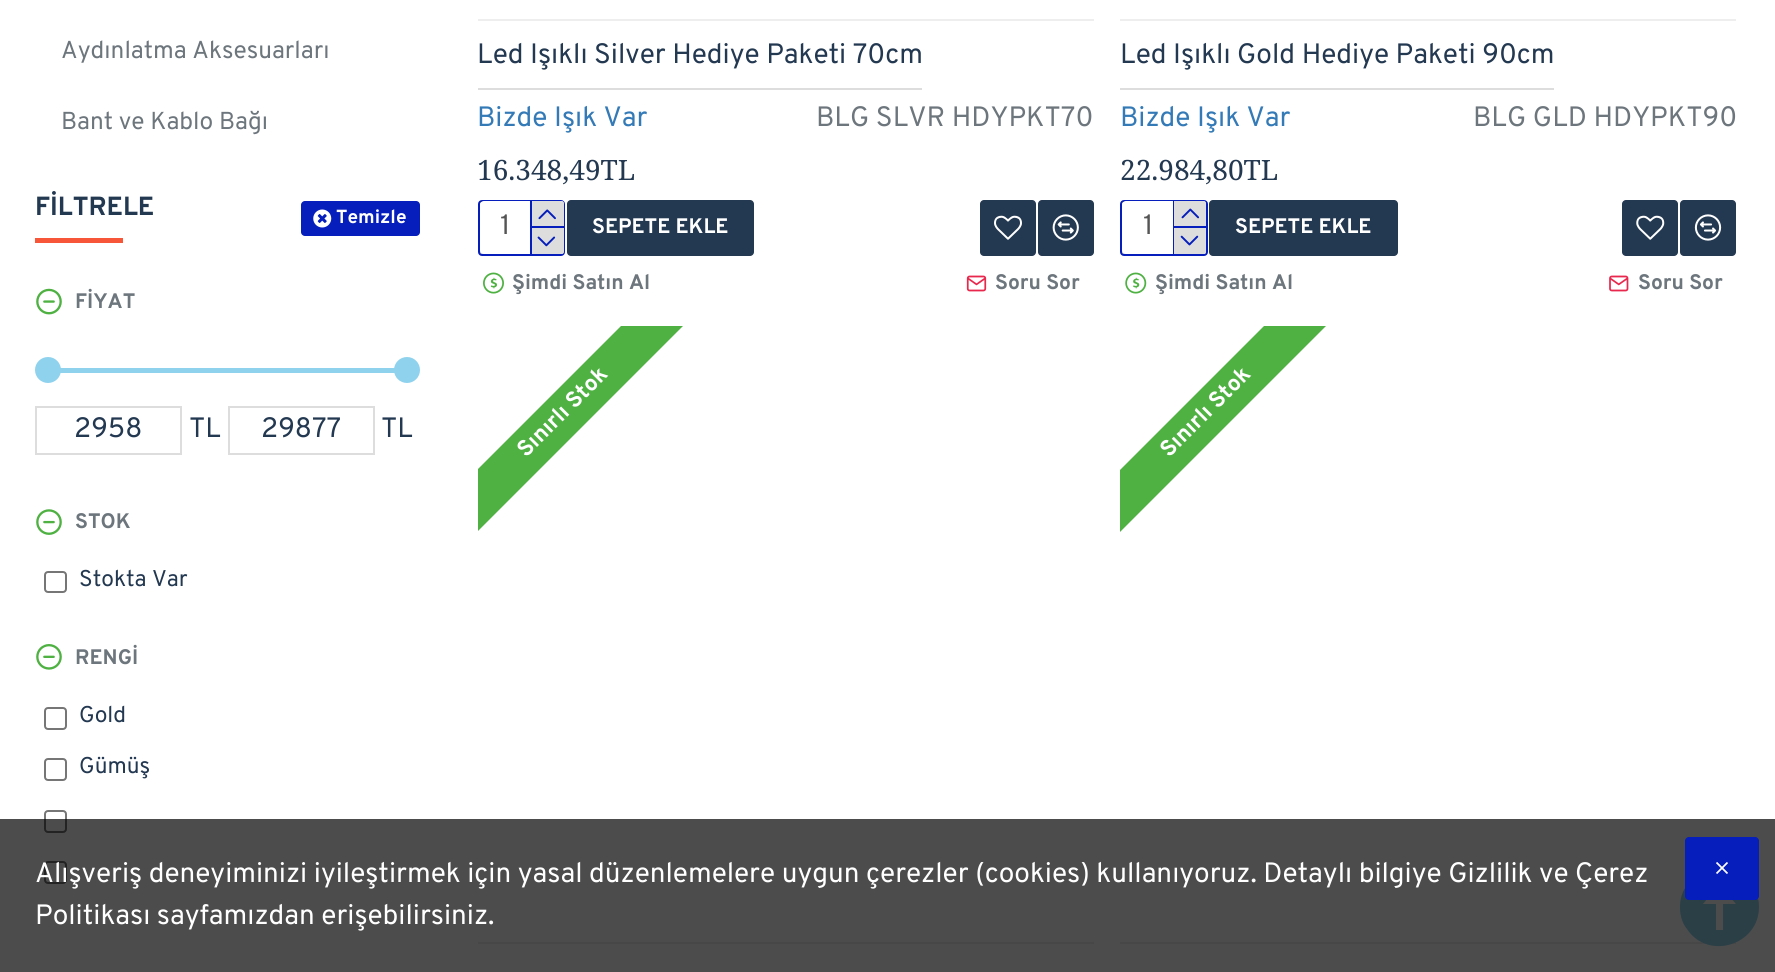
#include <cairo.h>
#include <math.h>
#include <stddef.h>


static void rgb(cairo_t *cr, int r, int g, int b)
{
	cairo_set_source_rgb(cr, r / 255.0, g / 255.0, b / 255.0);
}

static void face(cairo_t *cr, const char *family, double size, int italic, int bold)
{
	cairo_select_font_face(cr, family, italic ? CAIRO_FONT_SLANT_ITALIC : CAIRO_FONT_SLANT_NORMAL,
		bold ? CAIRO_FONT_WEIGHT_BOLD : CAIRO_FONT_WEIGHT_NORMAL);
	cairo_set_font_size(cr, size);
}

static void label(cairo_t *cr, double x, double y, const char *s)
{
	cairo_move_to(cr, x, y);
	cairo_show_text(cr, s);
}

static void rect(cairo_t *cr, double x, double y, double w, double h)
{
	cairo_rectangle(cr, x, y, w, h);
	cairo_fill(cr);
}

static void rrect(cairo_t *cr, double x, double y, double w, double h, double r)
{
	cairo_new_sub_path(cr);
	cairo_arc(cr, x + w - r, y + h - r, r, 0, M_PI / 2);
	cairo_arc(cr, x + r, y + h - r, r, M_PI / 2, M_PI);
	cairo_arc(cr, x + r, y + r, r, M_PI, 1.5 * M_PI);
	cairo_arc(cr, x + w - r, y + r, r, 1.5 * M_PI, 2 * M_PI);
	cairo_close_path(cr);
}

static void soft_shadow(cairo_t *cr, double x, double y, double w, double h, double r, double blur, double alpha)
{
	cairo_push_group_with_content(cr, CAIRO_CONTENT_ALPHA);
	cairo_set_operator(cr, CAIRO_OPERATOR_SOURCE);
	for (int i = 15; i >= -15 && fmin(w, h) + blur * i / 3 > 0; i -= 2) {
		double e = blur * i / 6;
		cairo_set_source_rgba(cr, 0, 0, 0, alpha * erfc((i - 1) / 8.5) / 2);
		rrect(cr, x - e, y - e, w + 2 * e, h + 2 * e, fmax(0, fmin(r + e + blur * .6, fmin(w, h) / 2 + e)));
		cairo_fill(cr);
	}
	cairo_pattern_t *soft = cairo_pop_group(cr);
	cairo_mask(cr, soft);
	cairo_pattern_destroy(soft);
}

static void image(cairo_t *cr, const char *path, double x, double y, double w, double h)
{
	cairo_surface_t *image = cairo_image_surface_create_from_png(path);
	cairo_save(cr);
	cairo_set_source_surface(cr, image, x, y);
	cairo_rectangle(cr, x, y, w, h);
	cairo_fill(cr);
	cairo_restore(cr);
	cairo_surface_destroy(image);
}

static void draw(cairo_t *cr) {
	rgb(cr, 255, 255, 255);
	cairo_paint(cr);
	face(cr, "Overpass", 24.5, 0, 0);
	rgb(cr, 109, 118, 125);
	label(cr, 61, 58, "Aydınlatma Aksesuarları");
	label(cr, 61, 129, "Bant ve Kablo Bağı");
	face(cr, "Overpass", 26.25, 0, 1);
	rgb(cr, 35, 56, 81);
	label(cr, 35, 215, "FİLTRELE");
	rgb(cr, 6, 30, 187);
	rrect(cr, 301, 201, 119, 35, 4);
	cairo_fill(cr);
	image(cr, "image0.png", 313, 209, 19, 19);
	face(cr, "Overpass", 19, 0, 1);
	rgb(cr, 255, 255, 255);
	label(cr, 336, 223, "Temizle");
	rgb(cr, 248, 86, 57);
	rect(cr, 35, 238, 88, 5);
	image(cr, "image1.png", 36, 288, 26, 27);
	face(cr, "Overpass", 21, 0, 1);
	rgb(cr, 109, 118, 125);
	label(cr, 75, 308, "FİYAT");
	rgb(cr, 143, 210, 238);
	cairo_new_path(cr);
	cairo_move_to(cr, 58, 368);
	cairo_line_to(cr, 399, 368);
	cairo_curve_to(cr, 404, 368, 408, 369, 408, 371);
	cairo_curve_to(cr, 408, 372, 404, 373, 399, 373);
	cairo_line_to(cr, 58, 373);
	cairo_curve_to(cr, 53, 373, 49, 372, 49, 371);
	cairo_curve_to(cr, 49, 369, 53, 368, 58, 368);
	cairo_close_path(cr);
	cairo_fill(cr);
	cairo_arc(cr, 48, 370, 13, 0, 2 * M_PI);
	cairo_fill(cr);
	cairo_arc(cr, 407, 370, 13, 0, 2 * M_PI);
	cairo_fill(cr);
	cairo_rectangle(cr, 36, 407, 145, 47);
	rgb(cr, 221, 221, 221);
	cairo_stroke(cr);
	face(cr, "Overpass", 28, 0, 0);
	rgb(cr, 35, 56, 81);
	label(cr, 74, 437, "2958");
	label(cr, 189, 437, "TL");
	cairo_rectangle(cr, 229, 407, 145, 47);
	rgb(cr, 221, 221, 221);
	cairo_stroke(cr);
	rgb(cr, 35, 56, 81);
	label(cr, 261, 437, "29877");
	label(cr, 381, 437, "TL");
	image(cr, "image2.png", 36, 509, 26, 26);
	face(cr, "Overpass", 21, 0, 1);
	rgb(cr, 109, 118, 125);
	label(cr, 75, 528, "STOK");
	rrect(cr, 45, 572, 21, 20, 3);
	rgb(cr, 118, 118, 118);
	cairo_stroke(cr);
	face(cr, "Overpass", 22.75, 0, 0);
	rgb(cr, 35, 56, 81);
	label(cr, 79, 586, "Stokta Var");
	image(cr, "image3.png", 36, 644, 26, 26);
	face(cr, "Overpass", 21, 0, 1);
	rgb(cr, 109, 118, 125);
	label(cr, 75, 664, "RENGİ");
	rrect(cr, 45, 708, 21, 21, 3);
	rgb(cr, 118, 118, 118);
	cairo_stroke(cr);
	face(cr, "Overpass", 22.75, 0, 0);
	rgb(cr, 35, 56, 81);
	label(cr, 79, 722, "Gold");
	rrect(cr, 45, 759, 21, 21, 3);
	rgb(cr, 118, 118, 118);
	cairo_stroke(cr);
	rgb(cr, 35, 56, 81);
	label(cr, 79, 773, "Gümüş");
	rrect(cr, 45, 811, 21, 21, 3);
	rgb(cr, 118, 118, 118);
	cairo_stroke(cr);
	rrect(cr, 45, 862, 21, 21, 3);
	cairo_stroke(cr);
	rgb(cr, 238, 238, 238);
	rect(cr, 478, 19, 616, 2);
	rgb(cr, 221, 221, 221);
	rect(cr, 478, 88, 444, 2);
	face(cr, "Overpass", 28, 0, 0);
	rgb(cr, 35, 56, 81);
	label(cr, 477, 63, "Led Işıklı Silver Hediye Paketi 70cm");
	rgb(cr, 51, 122, 183);
	label(cr, 477, 126, "Bizde Işık Var");
	rgb(cr, 109, 118, 125);
	label(cr, 816, 126, "BLG SLVR HDYPKT70");
	face(cr, "Noto Serif", 28, 0, 0);
	rgb(cr, 35, 56, 81);
	label(cr, 477, 180, "16.348,49TL");
	rrect(cr, 479, 201, 85, 54, 3);
	rgb(cr, 6, 30, 187);
	cairo_stroke(cr);
	cairo_save(cr);
	rrect(cr, 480, 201, 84, 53, 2);
	cairo_clip(cr);
	rgb(cr, 85, 85, 85);
	soft_shadow(cr, 483, 208, 77, 46, 0, 13, 1);
	cairo_restore(cr);
	rgb(cr, 255, 255, 255);
	rrect(cr, 480, 201, 84, 53, 4);
	cairo_fill(cr);
	face(cr, "Overpass", 28, 0, 0);
	rgb(cr, 85, 85, 85);
	label(cr, 500, 234, "1");
	rgb(cr, 6, 30, 187);
	rect(cr, 530, 201, 2, 53);
	rgb(cr, 221, 221, 221);
	cairo_new_path(cr);
	cairo_move_to(cr, 532, 201);
	cairo_line_to(cr, 562, 201);
	cairo_curve_to(cr, 563, 201, 564, 202, 564, 203);
	cairo_line_to(cr, 564, 226);
	cairo_line_to(cr, 532, 226);
	cairo_close_path(cr);
	cairo_fill(cr);
	rgb(cr, 6, 30, 187);
	rect(cr, 532, 226, 32, 2);
	image(cr, "image4.png", 538, 209, 18, 11);
	rgb(cr, 221, 221, 221);
	cairo_new_path(cr);
	cairo_move_to(cr, 532, 228);
	cairo_line_to(cr, 564, 228);
	cairo_line_to(cr, 564, 252);
	cairo_curve_to(cr, 564, 253, 563, 254, 562, 254);
	cairo_line_to(cr, 532, 254);
	cairo_close_path(cr);
	cairo_fill(cr);
	image(cr, "image5.png", 537, 236, 19, 11);
	rgb(cr, 35, 56, 81);
	rrect(cr, 567, 200, 187, 56, 4);
	cairo_fill(cr);
	face(cr, "Overpass", 21, 0, 1);
	rgb(cr, 255, 255, 255);
	label(cr, 592, 233, "SEPETE EKLE");
	rgb(cr, 35, 56, 81);
	rrect(cr, 980, 200, 56, 56, 4);
	cairo_fill(cr);
	image(cr, "image6.png", 994, 215, 28, 25);
	rrect(cr, 1038, 200, 56, 56, 4);
	cairo_fill(cr);
	image(cr, "image7.png", 1052, 214, 27, 27);
	image(cr, "image8.png", 483, 272, 21, 22);
	rgb(cr, 109, 118, 125);
	label(cr, 512, 289, "Şimdi Satın Al");
	image(cr, "image9.png", 966, 275, 21, 17);
	label(cr, 995, 289, "Soru Sor");
	rgb(cr, 238, 238, 238);
	rect(cr, 1120, 19, 616, 2);
	rgb(cr, 221, 221, 221);
	rect(cr, 1120, 88, 434, 2);
	face(cr, "Overpass", 28, 0, 0);
	rgb(cr, 35, 56, 81);
	label(cr, 1120, 63, "Led Işıklı Gold Hediye Paketi 90cm");
	rgb(cr, 51, 122, 183);
	label(cr, 1120, 126, "Bizde Işık Var");
	rgb(cr, 109, 118, 125);
	label(cr, 1473, 126, "BLG GLD HDYPKT90");
	face(cr, "Noto Serif", 28, 0, 0);
	rgb(cr, 35, 56, 81);
	label(cr, 1120, 180, "22.984,80TL");
	rrect(cr, 1121, 201, 86, 54, 3);
	rgb(cr, 6, 30, 187);
	cairo_stroke(cr);
	cairo_save(cr);
	rrect(cr, 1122, 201, 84, 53, 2);
	cairo_clip(cr);
	rgb(cr, 85, 85, 85);
	soft_shadow(cr, 1125, 208, 77, 46, 0, 13, 1);
	cairo_restore(cr);
	rgb(cr, 255, 255, 255);
	rrect(cr, 1122, 201, 84, 53, 4);
	cairo_fill(cr);
	face(cr, "Overpass", 28, 0, 0);
	rgb(cr, 85, 85, 85);
	label(cr, 1143, 234, "1");
	rgb(cr, 6, 30, 187);
	rect(cr, 1173, 201, 1, 53);
	rgb(cr, 221, 221, 221);
	cairo_new_path(cr);
	cairo_move_to(cr, 1174, 201);
	cairo_line_to(cr, 1204, 201);
	cairo_curve_to(cr, 1205, 201, 1206, 202, 1206, 203);
	cairo_line_to(cr, 1206, 226);
	cairo_line_to(cr, 1174, 226);
	cairo_close_path(cr);
	cairo_fill(cr);
	rgb(cr, 6, 30, 187);
	rect(cr, 1174, 226, 32, 2);
	image(cr, "image10.png", 1181, 208, 19, 11);
	rgb(cr, 221, 221, 221);
	cairo_new_path(cr);
	cairo_move_to(cr, 1174, 228);
	cairo_line_to(cr, 1206, 228);
	cairo_line_to(cr, 1206, 252);
	cairo_curve_to(cr, 1206, 253, 1205, 254, 1204, 254);
	cairo_line_to(cr, 1174, 254);
	cairo_close_path(cr);
	cairo_fill(cr);
	image(cr, "image11.png", 1180, 235, 19, 11);
	rgb(cr, 35, 56, 81);
	rrect(cr, 1209, 200, 189, 56, 4);
	cairo_fill(cr);
	face(cr, "Overpass", 21, 0, 1);
	rgb(cr, 255, 255, 255);
	label(cr, 1235, 233, "SEPETE EKLE");
	rgb(cr, 35, 56, 81);
	rrect(cr, 1622, 200, 56, 56, 4);
	cairo_fill(cr);
	image(cr, "image12.png", 1636, 215, 29, 25);
	rrect(cr, 1680, 200, 56, 56, 4);
	cairo_fill(cr);
	image(cr, "image13.png", 1694, 214, 28, 27);
	image(cr, "image14.png", 1125, 272, 22, 22);
	rgb(cr, 109, 118, 125);
	label(cr, 1155, 289, "Şimdi Satın Al");
	image(cr, "image15.png", 1609, 275, 20, 17);
	label(cr, 1638, 289, "Soru Sor");
	cairo_save(cr);
	cairo_rectangle(cr, 478, 326, 616, 616);
	cairo_clip(cr);
	rgb(cr, 78, 177, 66);
	cairo_new_path(cr);
	cairo_move_to(cr, 379, 568);
	cairo_line_to(cr, 719, 228);
	cairo_curve_to(cr, 728, 220, 741, 220, 750, 228);
	cairo_curve_to(cr, 759, 237, 759, 251, 750, 259);
	cairo_line_to(cr, 410, 599);
	cairo_curve_to(cr, 401, 608, 387, 608, 379, 599);
	cairo_curve_to(cr, 370, 591, 370, 577, 379, 568);
	cairo_close_path(cr);
	cairo_fill(cr);
	cairo_restore(cr);
	face(cr, "Overpass", 22.75, 0, 1);
	rgb(cr, 255, 255, 255);
	cairo_save(cr);
	cairo_translate(cr, 526, 458);
	cairo_rotate(cr, -45 * M_PI / 180);
	label(cr, 0, 0, "Sınırlı Stok");
	cairo_restore(cr);
	rgb(cr, 238, 238, 238);
	rect(cr, 478, 942, 616, 2);
	cairo_save(cr);
	cairo_rectangle(cr, 1120, 326, 616, 616);
	cairo_clip(cr);
	rgb(cr, 78, 177, 66);
	cairo_new_path(cr);
	cairo_move_to(cr, 1022, 568);
	cairo_line_to(cr, 1362, 228);
	cairo_curve_to(cr, 1371, 220, 1385, 220, 1393, 228);
	cairo_curve_to(cr, 1402, 237, 1402, 251, 1393, 259);
	cairo_line_to(cr, 1053, 599);
	cairo_curve_to(cr, 1044, 608, 1030, 608, 1022, 599);
	cairo_curve_to(cr, 1013, 591, 1013, 577, 1022, 568);
	cairo_close_path(cr);
	cairo_fill(cr);
	cairo_restore(cr);
	rgb(cr, 255, 255, 255);
	cairo_save(cr);
	cairo_translate(cr, 1169, 458);
	cairo_rotate(cr, -45 * M_PI / 180);
	label(cr, 0, 0, "Sınırlı Stok");
	cairo_restore(cr);
	rgb(cr, 238, 238, 238);
	rect(cr, 1120, 942, 616, 2);
	rgb(cr, 143, 210, 238);
	cairo_new_path(cr);
	cairo_move_to(cr, 1680, 907);
	cairo_curve_to(cr, 1680, 915, 1682, 923, 1687, 929);
	cairo_curve_to(cr, 1708, 961, 1759, 945, 1759, 907);
	cairo_curve_to(cr, 1759, 869, 1708, 853, 1687, 885);
	cairo_curve_to(cr, 1682, 892, 1680, 899, 1680, 907);
	cairo_close_path(cr);
	cairo_move_to(cr, 1736, 904);
	cairo_line_to(cr, 1723, 904);
	cairo_line_to(cr, 1723, 930);
	cairo_line_to(cr, 1716, 930);
	cairo_line_to(cr, 1716, 904);
	cairo_line_to(cr, 1703, 904);
	cairo_line_to(cr, 1719, 884);
	cairo_close_path(cr);
	cairo_fill(cr);
	cairo_set_source_rgba(cr, 0, 0, 0, 0.7);
	rect(cr, 0, 819, 1775, 153);
	face(cr, "Overpass", 28, 0, 0);
	rgb(cr, 255, 255, 255);
	label(cr, 35, 882, "Alışveriş deneyiminizi iyileştirmek için yasal düzenlemelere uygun çerezler (cookies) kullanıyoruz. Detaylı bilgiye Gizlilik ve Çerez");
	label(cr, 35, 924, "Politikası sayfamızdan erişebilirsiniz.");
	rgb(cr, 6, 30, 187);
	rrect(cr, 1685, 837, 74, 63, 4);
	cairo_fill(cr);
	image(cr, "image16.png", 1716, 862, 12, 12);
}

int main(void) {
	cairo_surface_t *surface = cairo_image_surface_create(CAIRO_FORMAT_RGB24, 1775, 972);
	cairo_t *cr = cairo_create(surface);
	cairo_font_options_t *options = cairo_font_options_create();
	cairo_font_options_set_hint_metrics(options, CAIRO_HINT_METRICS_OFF);
	cairo_font_options_set_hint_style(options, CAIRO_HINT_STYLE_NONE);
	cairo_set_font_options(cr, options);
	cairo_set_miter_limit(cr, 4);
	draw(cr);
	cairo_surface_write_to_png(surface, "render.png");
	cairo_font_options_destroy(options);
	cairo_destroy(cr);
	cairo_surface_destroy(surface);
	return 0;
}
